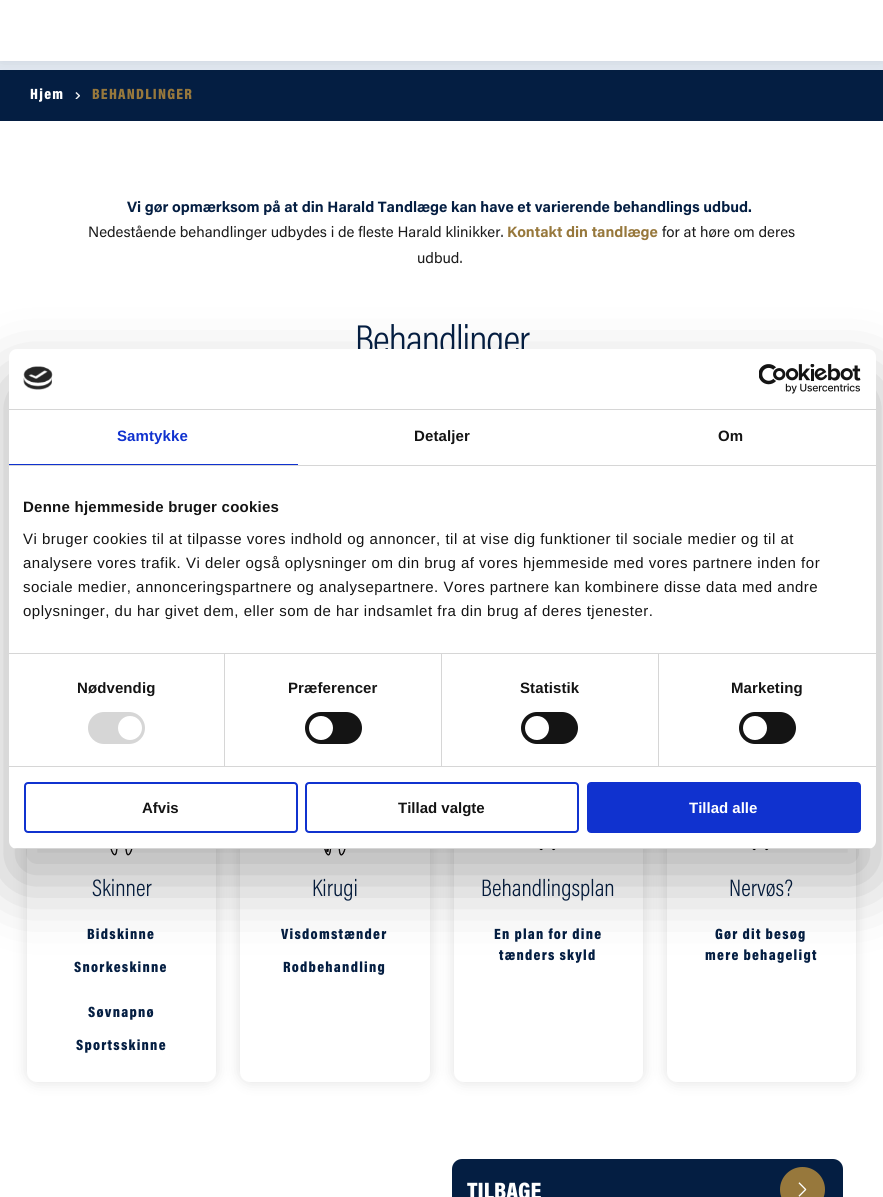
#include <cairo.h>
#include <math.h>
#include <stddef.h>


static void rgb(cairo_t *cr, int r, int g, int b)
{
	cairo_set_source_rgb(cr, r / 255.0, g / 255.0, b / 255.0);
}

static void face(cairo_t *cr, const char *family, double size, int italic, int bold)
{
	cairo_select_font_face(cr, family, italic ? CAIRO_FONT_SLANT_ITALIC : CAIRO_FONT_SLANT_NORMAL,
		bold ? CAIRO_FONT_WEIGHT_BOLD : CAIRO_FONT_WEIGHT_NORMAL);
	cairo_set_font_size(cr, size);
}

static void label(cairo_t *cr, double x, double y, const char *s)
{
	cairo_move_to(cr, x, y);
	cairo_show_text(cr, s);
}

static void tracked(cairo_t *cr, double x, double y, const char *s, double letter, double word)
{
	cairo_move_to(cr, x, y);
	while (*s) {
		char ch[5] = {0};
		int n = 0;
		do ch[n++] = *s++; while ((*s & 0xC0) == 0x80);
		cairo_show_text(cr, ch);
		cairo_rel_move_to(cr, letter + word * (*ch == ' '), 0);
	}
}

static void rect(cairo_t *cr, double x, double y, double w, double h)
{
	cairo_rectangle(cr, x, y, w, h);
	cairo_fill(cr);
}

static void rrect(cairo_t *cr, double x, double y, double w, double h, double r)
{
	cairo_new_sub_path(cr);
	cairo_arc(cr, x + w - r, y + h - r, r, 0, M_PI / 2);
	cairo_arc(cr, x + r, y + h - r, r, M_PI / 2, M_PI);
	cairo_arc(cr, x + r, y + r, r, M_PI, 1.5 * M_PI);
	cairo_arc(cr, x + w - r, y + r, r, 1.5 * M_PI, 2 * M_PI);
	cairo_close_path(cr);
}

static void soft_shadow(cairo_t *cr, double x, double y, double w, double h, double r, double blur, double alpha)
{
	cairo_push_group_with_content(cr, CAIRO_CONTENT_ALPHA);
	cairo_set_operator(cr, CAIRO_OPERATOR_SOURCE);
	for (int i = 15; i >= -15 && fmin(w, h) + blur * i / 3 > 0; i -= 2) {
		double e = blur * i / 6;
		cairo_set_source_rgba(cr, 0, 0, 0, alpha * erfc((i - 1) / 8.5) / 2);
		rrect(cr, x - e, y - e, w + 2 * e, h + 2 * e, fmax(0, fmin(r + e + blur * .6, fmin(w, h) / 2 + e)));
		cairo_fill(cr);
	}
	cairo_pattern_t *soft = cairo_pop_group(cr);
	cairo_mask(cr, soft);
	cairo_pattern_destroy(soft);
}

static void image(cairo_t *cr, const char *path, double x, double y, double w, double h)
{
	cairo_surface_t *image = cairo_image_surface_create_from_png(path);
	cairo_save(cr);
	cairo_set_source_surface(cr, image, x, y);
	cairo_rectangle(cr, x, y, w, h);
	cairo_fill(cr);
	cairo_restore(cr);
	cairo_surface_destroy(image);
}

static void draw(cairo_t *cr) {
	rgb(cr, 255, 255, 255);
	cairo_paint(cr);
	rgb(cr, 226, 233, 242);
	rect(cr, 0, 61, 883, 9);
	rgb(cr, 4, 30, 66);
	rect(cr, 0, 70, 883, 51);
	rgb(cr, 0, 0, 0);
	soft_shadow(cr, 0, 0, 883, 61, 0, 7.5, 0.1);
	rgb(cr, 255, 255, 255);
	rect(cr, 0, 0, 883, 61);
	face(cr, "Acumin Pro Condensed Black", 15, 0, 0);
	tracked(cr, 30, 99, "Hjem", 1.25, 0);
	image(cr, "image0.png", 75, 92, 5, 7);
	rgb(cr, 151, 120, 60);
	tracked(cr, 92, 99, "BEHANDLINGER", 1.25, 0);
	face(cr, "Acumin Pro", 15, 0, 1);
	rgb(cr, 4, 30, 66);
	label(cr, 127, 212, "Vi gør opmærksom på at din Harald Tandlæge kan have et varierende behandlings udbud.");
	face(cr, "Acumin Pro", 15, 0, 0);
	rgb(cr, 28, 28, 28);
	label(cr, 88, 237, "Nedestående behandlinger udbydes i de fleste Harald klinikker.");
	face(cr, "Acumin Pro", 15, 0, 1);
	rgb(cr, 151, 120, 60);
	label(cr, 507, 237, "Kontakt din tandlæge");
	face(cr, "Acumin Pro", 15, 0, 0);
	rgb(cr, 28, 28, 28);
	label(cr, 662, 237, "for at høre om deres");
	label(cr, 417, 263, "udbud.");
	face(cr, "Acumin Pro Condensed Light", 42, 0, 0);
	rgb(cr, 4, 30, 66);
	tracked(cr, 355, 354, "Behandlinger", -1, 0);
	rgb(cr, 0, 0, 0);
	soft_shadow(cr, 27, 773, 189, 309, 10, 7.5, 0.12);
	rgb(cr, 255, 255, 255);
	rrect(cr, 27, 773, 189, 309, 10);
	cairo_fill(cr);
	image(cr, "image1.png", 110, 849, 23, 7);
	face(cr, "Acumin Pro Condensed Light", 24, 0, 0);
	rgb(cr, 4, 30, 66);
	label(cr, 92, 896, "Skinner");
	face(cr, "Acumin Pro Condensed Black", 15, 0, 0);
	tracked(cr, 87, 939, "Bidskinne", 1.25, 0);
	tracked(cr, 74, 972, "Snorkeskinne", 1.25, 0);
	tracked(cr, 88, 1017, "Søvnapnø", 1.25, 0);
	tracked(cr, 76, 1050, "Sportsskinne", 1.25, 0);
	rgb(cr, 0, 0, 0);
	soft_shadow(cr, 240, 773, 190, 309, 10, 7.5, 0.12);
	rgb(cr, 255, 255, 255);
	rrect(cr, 240, 773, 190, 309, 10);
	cairo_fill(cr);
	image(cr, "image2.png", 324, 849, 22, 7);
	face(cr, "Acumin Pro Condensed Light", 24, 0, 0);
	rgb(cr, 4, 30, 66);
	label(cr, 312, 896, "Kirugi");
	face(cr, "Acumin Pro Condensed Black", 15, 0, 0);
	tracked(cr, 281, 939, "Visdomstænder", 1.25, 0);
	tracked(cr, 283, 972, "Rodbehandling", 1.25, 0);
	rgb(cr, 0, 0, 0);
	soft_shadow(cr, 454, 773, 189, 309, 10, 7.5, 0.12);
	rgb(cr, 255, 255, 255);
	rrect(cr, 454, 773, 189, 309, 10);
	cairo_fill(cr);
	image(cr, "image3.png", 539, 849, 17, 2);
	face(cr, "Acumin Pro Condensed Light", 24, 0, 0);
	rgb(cr, 4, 30, 66);
	label(cr, 481, 896, "Behandlingsplan");
	face(cr, "Acumin Pro Condensed Black", 15, 0, 0);
	tracked(cr, 494, 939, "En plan for dine", 1.25, 0);
	tracked(cr, 499, 960, "tænders skyld", 1.25, 0);
	rgb(cr, 0, 0, 0);
	soft_shadow(cr, 667, 773, 189, 309, 10, 7.5, 0.12);
	rgb(cr, 255, 255, 255);
	rrect(cr, 667, 773, 189, 309, 10);
	cairo_fill(cr);
	image(cr, "image3.png", 752, 849, 17, 2);
	face(cr, "Acumin Pro Condensed Light", 24, 0, 0);
	rgb(cr, 4, 30, 66);
	label(cr, 729, 896, "Nervøs?");
	face(cr, "Acumin Pro Condensed Black", 15, 0, 0);
	tracked(cr, 715, 939, "Gør dit besøg", 1.25, 0);
	tracked(cr, 705, 960, "mere behageligt", 1.25, 0);
	rrect(cr, 452, 1159, 391, 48, 10);
	cairo_fill(cr);
	face(cr, "Acumin Pro Condensed Black", 24, 0, 0);
	rgb(cr, 255, 255, 255);
	label(cr, 467, 1199, "TILBAGE");
	rgb(cr, 151, 120, 60);
	cairo_new_path(cr);
	cairo_arc(cr, 802.5, 1189.5, 24, 0, 2 * M_PI);
	cairo_fill_preserve(cr);
	rgb(cr, 4, 30, 66);
	cairo_set_line_width(cr, 3);
	cairo_stroke(cr);
	image(cr, "image4.png", 798, 1182, 9, 15);
	rgb(cr, 0, 0, 0);
	soft_shadow(cr, 9, 381, 867, 500, 8, 34, 0.3);
	rgb(cr, 255, 255, 255);
	rrect(cr, 9, 349, 867, 500, 8);
	cairo_fill(cr);
	rgb(cr, 214, 214, 214);
	rect(cr, 9, 409, 867, 1);
	image(cr, "image5.png", 23, 366, 30, 24);
	image(cr, "image6.png", 759, 364, 102, 30);
	rect(cr, 9, 465, 867, 1);
	rgb(cr, 16, 50, 207);
	rect(cr, 9, 464, 289, 1);
	face(cr, "Liberation Sans", 15, 0, 1);
	tracked(cr, 117, 441, "Samtykke", 0.1, 0);
	rgb(cr, 20, 20, 20);
	tracked(cr, 414, 441, "Detaljer", 0.1, 0);
	tracked(cr, 718, 441, "Om", 0.1, 0);
	rgb(cr, 214, 214, 214);
	rect(cr, 9, 653, 867, 1);
	rgb(cr, 20, 20, 20);
	tracked(cr, 23, 512, "Denne hjemmeside bruger cookies", 0.25, 0);
	face(cr, "Liberation Sans", 15, 0, 0);
	tracked(cr, 23, 544, "Vi bruger cookies til at tilpasse vores indhold og annoncer, til at vise dig funktioner til sociale medier og til at", 0.5, 0);
	tracked(cr, 23, 568, "analysere vores trafik. Vi deler også oplysninger om din brug af vores hjemmeside med vores partnere inden for", 0.5, 0);
	tracked(cr, 23, 592, "sociale medier, annonceringspartnere og analysepartnere. Vores partnere kan kombinere disse data med andre", 0.5, 0);
	tracked(cr, 23, 616, "oplysninger, du har givet dem, eller som de har indsamlet fra din brug af deres tjenester.", 0.5, 0);
	rgb(cr, 214, 214, 214);
	rect(cr, 9, 766, 867, 1);
	rect(cr, 224, 654, 1, 112);
	face(cr, "Liberation Sans", 15, 0, 1);
	rgb(cr, 20, 20, 20);
	tracked(cr, 77, 693, "Nødvendig", 0.1, 0);
	rgb(cr, 214, 214, 214);
	rrect(cr, 88, 712, 57, 32, 16);
	cairo_fill(cr);
	rgb(cr, 255, 255, 255);
	cairo_arc(cr, 130, 728, 12, 0, 2 * M_PI);
	cairo_fill(cr);
	rgb(cr, 214, 214, 214);
	rect(cr, 441, 654, 1, 112);
	rgb(cr, 20, 20, 20);
	tracked(cr, 288, 693, "Præferencer", 0.1, 0);
	rrect(cr, 305, 712, 57, 32, 16);
	cairo_fill(cr);
	rgb(cr, 255, 255, 255);
	cairo_arc(cr, 321, 728, 12, 0, 2 * M_PI);
	cairo_fill(cr);
	rgb(cr, 214, 214, 214);
	rect(cr, 658, 654, 1, 112);
	rgb(cr, 20, 20, 20);
	tracked(cr, 520, 693, "Statistik", 0.1, 0);
	rrect(cr, 521, 712, 57, 32, 16);
	cairo_fill(cr);
	rgb(cr, 255, 255, 255);
	cairo_arc(cr, 537, 728, 12, 0, 2 * M_PI);
	cairo_fill(cr);
	rgb(cr, 20, 20, 20);
	tracked(cr, 731, 693, "Marketing", 0.1, 0);
	rrect(cr, 739, 712, 57, 32, 16);
	cairo_fill(cr);
	rgb(cr, 255, 255, 255);
	cairo_arc(cr, 755, 728, 12, 0, 2 * M_PI);
	cairo_fill(cr);
	cairo_save(cr);
	rrect(cr, 9, 349, 867, 500, 8);
	cairo_clip(cr);
	rgb(cr, 214, 214, 214);
	rect(cr, 9, 848, 867, 1);
	cairo_restore(cr);
	rrect(cr, 25, 783, 272, 49, 3);
	rgb(cr, 16, 50, 207);
	cairo_set_line_width(cr, 2);
	cairo_stroke(cr);
	rgb(cr, 20, 20, 20);
	label(cr, 142, 813, "Afvis");
	rrect(cr, 306, 783, 272, 49, 3);
	rgb(cr, 16, 50, 207);
	cairo_stroke(cr);
	rgb(cr, 20, 20, 20);
	label(cr, 398, 813, "Tillad valgte");
	rgb(cr, 16, 50, 207);
	rrect(cr, 588, 783, 272, 49, 3);
	cairo_fill_preserve(cr);
	cairo_stroke(cr);
	rgb(cr, 255, 255, 255);
	label(cr, 689, 813, "Tillad alle");
}

int main(void) {
	cairo_surface_t *surface = cairo_image_surface_create(CAIRO_FORMAT_RGB24, 883, 1197);
	cairo_t *cr = cairo_create(surface);
	cairo_font_options_t *options = cairo_font_options_create();
	cairo_font_options_set_hint_metrics(options, CAIRO_HINT_METRICS_OFF);
	cairo_font_options_set_hint_style(options, CAIRO_HINT_STYLE_NONE);
	cairo_set_font_options(cr, options);
	cairo_set_miter_limit(cr, 4);
	draw(cr);
	cairo_surface_write_to_png(surface, "render.png");
	cairo_font_options_destroy(options);
	cairo_destroy(cr);
	cairo_surface_destroy(surface);
	return 0;
}
